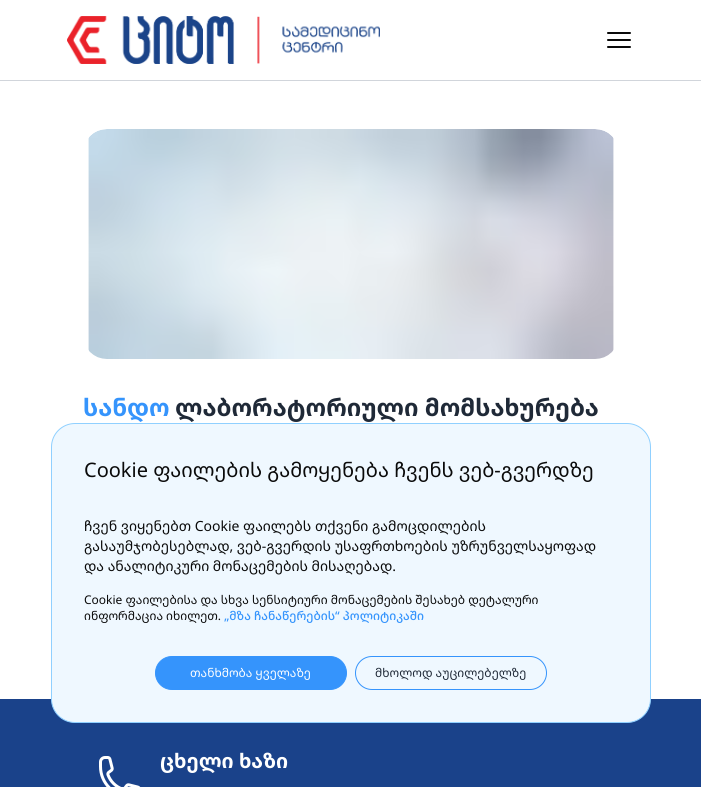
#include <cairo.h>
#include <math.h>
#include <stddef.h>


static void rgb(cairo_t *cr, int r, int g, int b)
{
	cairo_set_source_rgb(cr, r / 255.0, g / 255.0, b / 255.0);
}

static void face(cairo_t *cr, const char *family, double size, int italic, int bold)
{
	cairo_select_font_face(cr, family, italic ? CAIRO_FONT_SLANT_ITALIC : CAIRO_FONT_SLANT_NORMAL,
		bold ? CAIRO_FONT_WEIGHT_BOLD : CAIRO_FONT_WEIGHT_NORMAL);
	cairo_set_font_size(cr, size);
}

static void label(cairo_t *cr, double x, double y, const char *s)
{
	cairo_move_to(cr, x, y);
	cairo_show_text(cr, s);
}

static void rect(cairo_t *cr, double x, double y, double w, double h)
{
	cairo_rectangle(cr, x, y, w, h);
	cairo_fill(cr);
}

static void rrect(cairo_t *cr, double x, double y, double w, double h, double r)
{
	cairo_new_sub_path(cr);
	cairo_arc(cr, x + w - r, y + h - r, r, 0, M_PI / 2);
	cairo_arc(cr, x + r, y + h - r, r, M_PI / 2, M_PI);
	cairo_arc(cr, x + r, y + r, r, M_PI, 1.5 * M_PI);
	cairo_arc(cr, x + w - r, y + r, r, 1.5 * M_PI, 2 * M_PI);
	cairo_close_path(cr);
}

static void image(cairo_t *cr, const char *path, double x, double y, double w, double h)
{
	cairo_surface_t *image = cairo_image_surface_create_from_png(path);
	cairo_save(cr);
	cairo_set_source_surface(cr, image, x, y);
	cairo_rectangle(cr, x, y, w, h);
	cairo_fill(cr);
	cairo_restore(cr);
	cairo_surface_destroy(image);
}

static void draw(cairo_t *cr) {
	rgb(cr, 255, 255, 255);
	cairo_paint(cr);
	rgb(cr, 209, 213, 219);
	rect(cr, 0, 80, 701, 1);
	image(cr, "image0.png", 67, 16, 313, 48);
	image(cr, "image1.png", 607, 32, 24, 16);
	image(cr, "image2.png", 88, 129, 526, 230);
	face(cr, "Noto Sans Georgian", 24, 0, 1);
	rgb(cr, 53, 148, 252);
	label(cr, 83, 416, "სანდო");
	rgb(cr, 31, 41, 55);
	label(cr, 175, 416, "ლაბორატორიული მომსახურება");
	rgb(cr, 26, 66, 138);
	rect(cr, 0, 699, 701, 88);
	image(cr, "image3.png", 99, 756, 42, 31);
	face(cr, "Noto Sans Georgian", 20, 0, 1);
	rgb(cr, 255, 255, 255);
	label(cr, 160, 768, "ცხელი ხაზი");
	rgb(cr, 239, 248, 255);
	rrect(cr, 51.5, 423.5, 599, 299, 23.5);
	cairo_fill_preserve(cr);
	rgb(cr, 144, 208, 255);
	cairo_set_line_width(cr, 1);
	cairo_stroke(cr);
	face(cr, "Noto Sans Georgian", 20, 0, 0);
	rgb(cr, 10, 10, 10);
	label(cr, 84, 477, "Cookie ფაილების გამოყენება ჩვენს ვებ-გვერდზე");
	face(cr, "Noto Sans Georgian", 14, 0, 0);
	label(cr, 84, 531, "ჩვენ ვიყენებთ Cookie ფაილებს თქვენი გამოცდილების");
	label(cr, 84, 551, "გასაუმჯობესებლად, ვებ-გვერდის უსაფრთხოების უზრუნველსაყოფად");
	label(cr, 84, 571, "და ანალიტიკური მონაცემების მისაღებად.");
	face(cr, "Noto Sans Georgian", 12, 0, 0);
	label(cr, 84, 604, "Cookie ფაილებისა და სხვა სენსიტიური მონაცემების შესახებ დეტალური");
	label(cr, 84, 620, "ინფორმაცია იხილეთ.");
	face(cr, "Noto Sans Georgian Medium", 12, 0, 0);
	rgb(cr, 53, 148, 252);
	label(cr, 224, 620, "„მზა ჩანაწერების“ პოლიტიკაში");
	rrect(cr, 155.5, 656.5, 191, 33, 16.5);
	cairo_fill_preserve(cr);
	cairo_stroke(cr);
	face(cr, "Noto Sans Georgian", 12, 0, 0);
	rgb(cr, 255, 255, 255);
	label(cr, 190, 677, "თანხმობა ყველაზე");
	rrect(cr, 355.5, 656.5, 191, 33, 16.5);
	rgb(cr, 53, 148, 252);
	cairo_stroke(cr);
	rgb(cr, 31, 41, 55);
	label(cr, 375, 677, "მხოლოდ აუცილებელზე");
}

int main(void) {
	cairo_surface_t *surface = cairo_image_surface_create(CAIRO_FORMAT_RGB24, 701, 787);
	cairo_t *cr = cairo_create(surface);
	cairo_font_options_t *options = cairo_font_options_create();
	cairo_font_options_set_hint_metrics(options, CAIRO_HINT_METRICS_OFF);
	cairo_font_options_set_hint_style(options, CAIRO_HINT_STYLE_NONE);
	cairo_set_font_options(cr, options);
	cairo_set_miter_limit(cr, 4);
	draw(cr);
	cairo_surface_write_to_png(surface, "render.png");
	cairo_font_options_destroy(options);
	cairo_destroy(cr);
	cairo_surface_destroy(surface);
	return 0;
}
